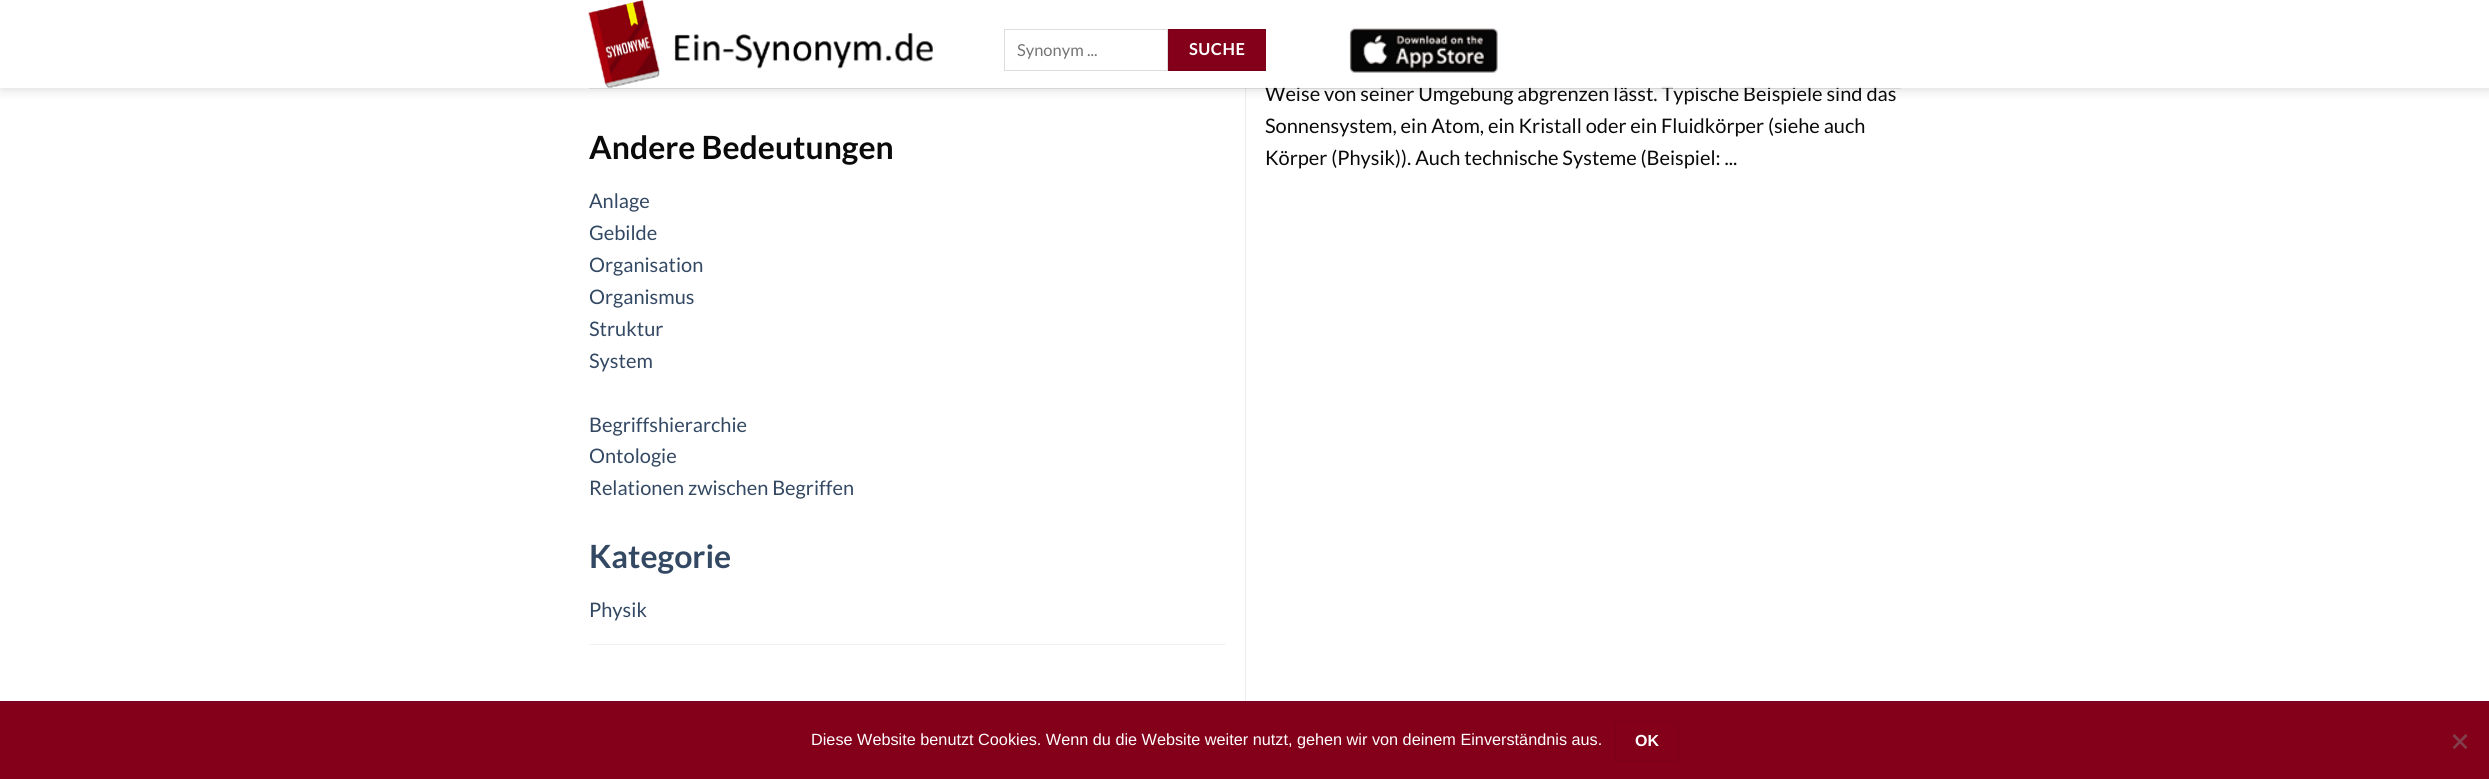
#include <cairo.h>
#include <math.h>
#include <stddef.h>


static void rgb(cairo_t *cr, int r, int g, int b)
{
	cairo_set_source_rgb(cr, r / 255.0, g / 255.0, b / 255.0);
}

static void face(cairo_t *cr, const char *family, double size, int italic, int bold)
{
	cairo_select_font_face(cr, family, italic ? CAIRO_FONT_SLANT_ITALIC : CAIRO_FONT_SLANT_NORMAL,
		bold ? CAIRO_FONT_WEIGHT_BOLD : CAIRO_FONT_WEIGHT_NORMAL);
	cairo_set_font_size(cr, size);
}

static void label(cairo_t *cr, double x, double y, const char *s)
{
	cairo_move_to(cr, x, y);
	cairo_show_text(cr, s);
}

static void tracked(cairo_t *cr, double x, double y, const char *s, double letter, double word)
{
	cairo_move_to(cr, x, y);
	while (*s) {
		char ch[5] = {0};
		int n = 0;
		do ch[n++] = *s++; while ((*s & 0xC0) == 0x80);
		cairo_show_text(cr, ch);
		cairo_rel_move_to(cr, letter + word * (*ch == ' '), 0);
	}
}

static void rect(cairo_t *cr, double x, double y, double w, double h)
{
	cairo_rectangle(cr, x, y, w, h);
	cairo_fill(cr);
}

static void rrect(cairo_t *cr, double x, double y, double w, double h, double r)
{
	cairo_new_sub_path(cr);
	cairo_arc(cr, x + w - r, y + h - r, r, 0, M_PI / 2);
	cairo_arc(cr, x + r, y + h - r, r, M_PI / 2, M_PI);
	cairo_arc(cr, x + r, y + r, r, M_PI, 1.5 * M_PI);
	cairo_arc(cr, x + w - r, y + r, r, 1.5 * M_PI, 2 * M_PI);
	cairo_close_path(cr);
}

static void soft_shadow(cairo_t *cr, double x, double y, double w, double h, double r, double blur, double alpha)
{
	cairo_push_group_with_content(cr, CAIRO_CONTENT_ALPHA);
	cairo_set_operator(cr, CAIRO_OPERATOR_SOURCE);
	for (int i = 15; i >= -15 && fmin(w, h) + blur * i / 3 > 0; i -= 2) {
		double e = blur * i / 6;
		cairo_set_source_rgba(cr, 0, 0, 0, alpha * erfc((i - 1) / 8.5) / 2);
		rrect(cr, x - e, y - e, w + 2 * e, h + 2 * e, fmax(0, fmin(r + e + blur * .6, fmin(w, h) / 2 + e)));
		cairo_fill(cr);
	}
	cairo_pattern_t *soft = cairo_pop_group(cr);
	cairo_mask(cr, soft);
	cairo_pattern_destroy(soft);
}

static void image(cairo_t *cr, const char *path, double x, double y, double w, double h)
{
	cairo_surface_t *image = cairo_image_surface_create_from_png(path);
	cairo_save(cr);
	cairo_set_source_surface(cr, image, x, y);
	cairo_rectangle(cr, x, y, w, h);
	cairo_fill(cr);
	cairo_restore(cr);
	cairo_surface_destroy(image);
}

static void draw(cairo_t *cr) {
	rgb(cr, 255, 255, 255);
	cairo_paint(cr);
	rgb(cr, 236, 236, 236);
	rect(cr, 1245, 0, 1, 701);
	cairo_save(cr);
	cairo_set_fill_rule(cr, CAIRO_FILL_RULE_EVEN_ODD);
	cairo_new_path(cr);
	cairo_move_to(cr, 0, 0);
	cairo_line_to(cr, 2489, 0);
	cairo_line_to(cr, 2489, 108);
	cairo_line_to(cr, 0, 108);
	cairo_close_path(cr);
	cairo_move_to(cr, 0, 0);
	cairo_line_to(cr, 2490, 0);
	cairo_line_to(cr, 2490, 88);
	cairo_line_to(cr, 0, 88);
	cairo_close_path(cr);
	cairo_clip(cr);
	rgb(cr, 0, 0, 0);
	soft_shadow(cr, 1, 1, 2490, 88, 0, 6, 0.15);
	cairo_restore(cr);
	face(cr, "Lato", 20, 0, 0);
	rgb(cr, 10, 10, 10);
	label(cr, 1265, 101, "Weise von seiner Umgebung abgrenzen lässt. Typische Beispiele sind das");
	cairo_set_source_rgba(cr, 1, 1, 1, 0.9);
	rect(cr, 0, 0, 2489, 88);
	image(cr, "image0.png", 588, 0, 345, 88);
	cairo_rectangle(cr, 1004.5, 29.5, 163, 41);
	rgb(cr, 221, 221, 221);
	cairo_set_line_width(cr, 1);
	cairo_stroke(cr);
	face(cr, "Lato", 16.5, 0, 0);
	rgb(cr, 117, 117, 117);
	label(cr, 1017, 56, "Synonym ...");
	rgb(cr, 132, 0, 26);
	cairo_rectangle(cr, 1168.5, 29.5, 97, 41);
	cairo_fill_preserve(cr);
	rgb(cr, 125, 0, 25);
	cairo_stroke(cr);
	face(cr, "Lato", 16.5, 0, 1);
	rgb(cr, 255, 255, 255);
	tracked(cr, 1189, 55, "SUCHE", 0.5, 0);
	image(cr, "image1.png", 1349, 28, 149, 45);
	cairo_set_source_rgba(cr, 0.039, 0.039, 0.039, 0.1);
	rect(cr, 589, 88, 1312, 1);
	face(cr, "Lato", 32, 0, 1);
	rgb(cr, 10, 10, 10);
	label(cr, 589, 159, "Andere Bedeutungen");
	face(cr, "Lato", 20, 0, 0);
	rgb(cr, 51, 72, 98);
	label(cr, 589, 208, "Anlage");
	label(cr, 589, 240, "Gebilde");
	label(cr, 589, 272, "Organisation");
	label(cr, 589, 304, "Organismus");
	label(cr, 589, 336, "Struktur");
	label(cr, 589, 368, "System");
	label(cr, 589, 432, "Begriffshierarchie");
	label(cr, 589, 463, "Ontologie");
	label(cr, 589, 495, "Relationen zwischen Begriffen");
	face(cr, "Lato", 32, 0, 1);
	label(cr, 589, 568, "Kategorie");
	face(cr, "Lato", 20, 0, 0);
	label(cr, 589, 617, "Physik");
	rgb(cr, 242, 242, 242);
	rect(cr, 589, 644, 637, 1);
	rgb(cr, 10, 10, 10);
	label(cr, 1265, 133, "Sonnensystem, ein Atom, ein Kristall oder ein Fluidkörper (siehe auch");
	label(cr, 1265, 165, "Körper (Physik)). Auch technische Systeme (Beispiel: ...");
	rgb(cr, 126, 0, 35);
	rect(cr, 0, 701, 2489, 2);
	rgb(cr, 132, 0, 26);
	rect(cr, 0, 703, 2489, 76);
	face(cr, "Liberation Sans", 16.25, 0, 0);
	rgb(cr, 255, 255, 255);
	label(cr, 811, 745, "Diese Website benutzt Cookies. Wenn du die Website weiter nutzt, gehen wir von deinem Einverständnis aus.");
	cairo_rectangle(cr, 1615.5, 721.5, 63, 39);
	rgb(cr, 125, 0, 25);
	cairo_stroke(cr);
	face(cr, "Liberation Sans", 16, 0, 1);
	rgb(cr, 255, 255, 255);
	label(cr, 1635, 746, "OK");
	rgb(cr, 130, 64, 77);
	cairo_new_path(cr);
	cairo_move_to(cr, 2465.5, 734);
	cairo_line_to(cr, 2467.5, 736);
	cairo_line_to(cr, 2454.5, 749);
	cairo_line_to(cr, 2452.5, 747.5);
	cairo_close_path(cr);
	cairo_fill(cr);
	cairo_new_path(cr);
	cairo_move_to(cr, 2452.5, 736);
	cairo_line_to(cr, 2454.5, 734);
	cairo_line_to(cr, 2467.5, 747.5);
	cairo_line_to(cr, 2465.5, 749);
	cairo_close_path(cr);
	cairo_fill(cr);
}

int main(void) {
	cairo_surface_t *surface = cairo_image_surface_create(CAIRO_FORMAT_RGB24, 2489, 779);
	cairo_t *cr = cairo_create(surface);
	cairo_font_options_t *options = cairo_font_options_create();
	cairo_font_options_set_hint_metrics(options, CAIRO_HINT_METRICS_OFF);
	cairo_font_options_set_hint_style(options, CAIRO_HINT_STYLE_NONE);
	cairo_set_font_options(cr, options);
	cairo_set_miter_limit(cr, 4);
	draw(cr);
	cairo_surface_write_to_png(surface, "render.png");
	cairo_font_options_destroy(options);
	cairo_destroy(cr);
	cairo_surface_destroy(surface);
	return 0;
}
